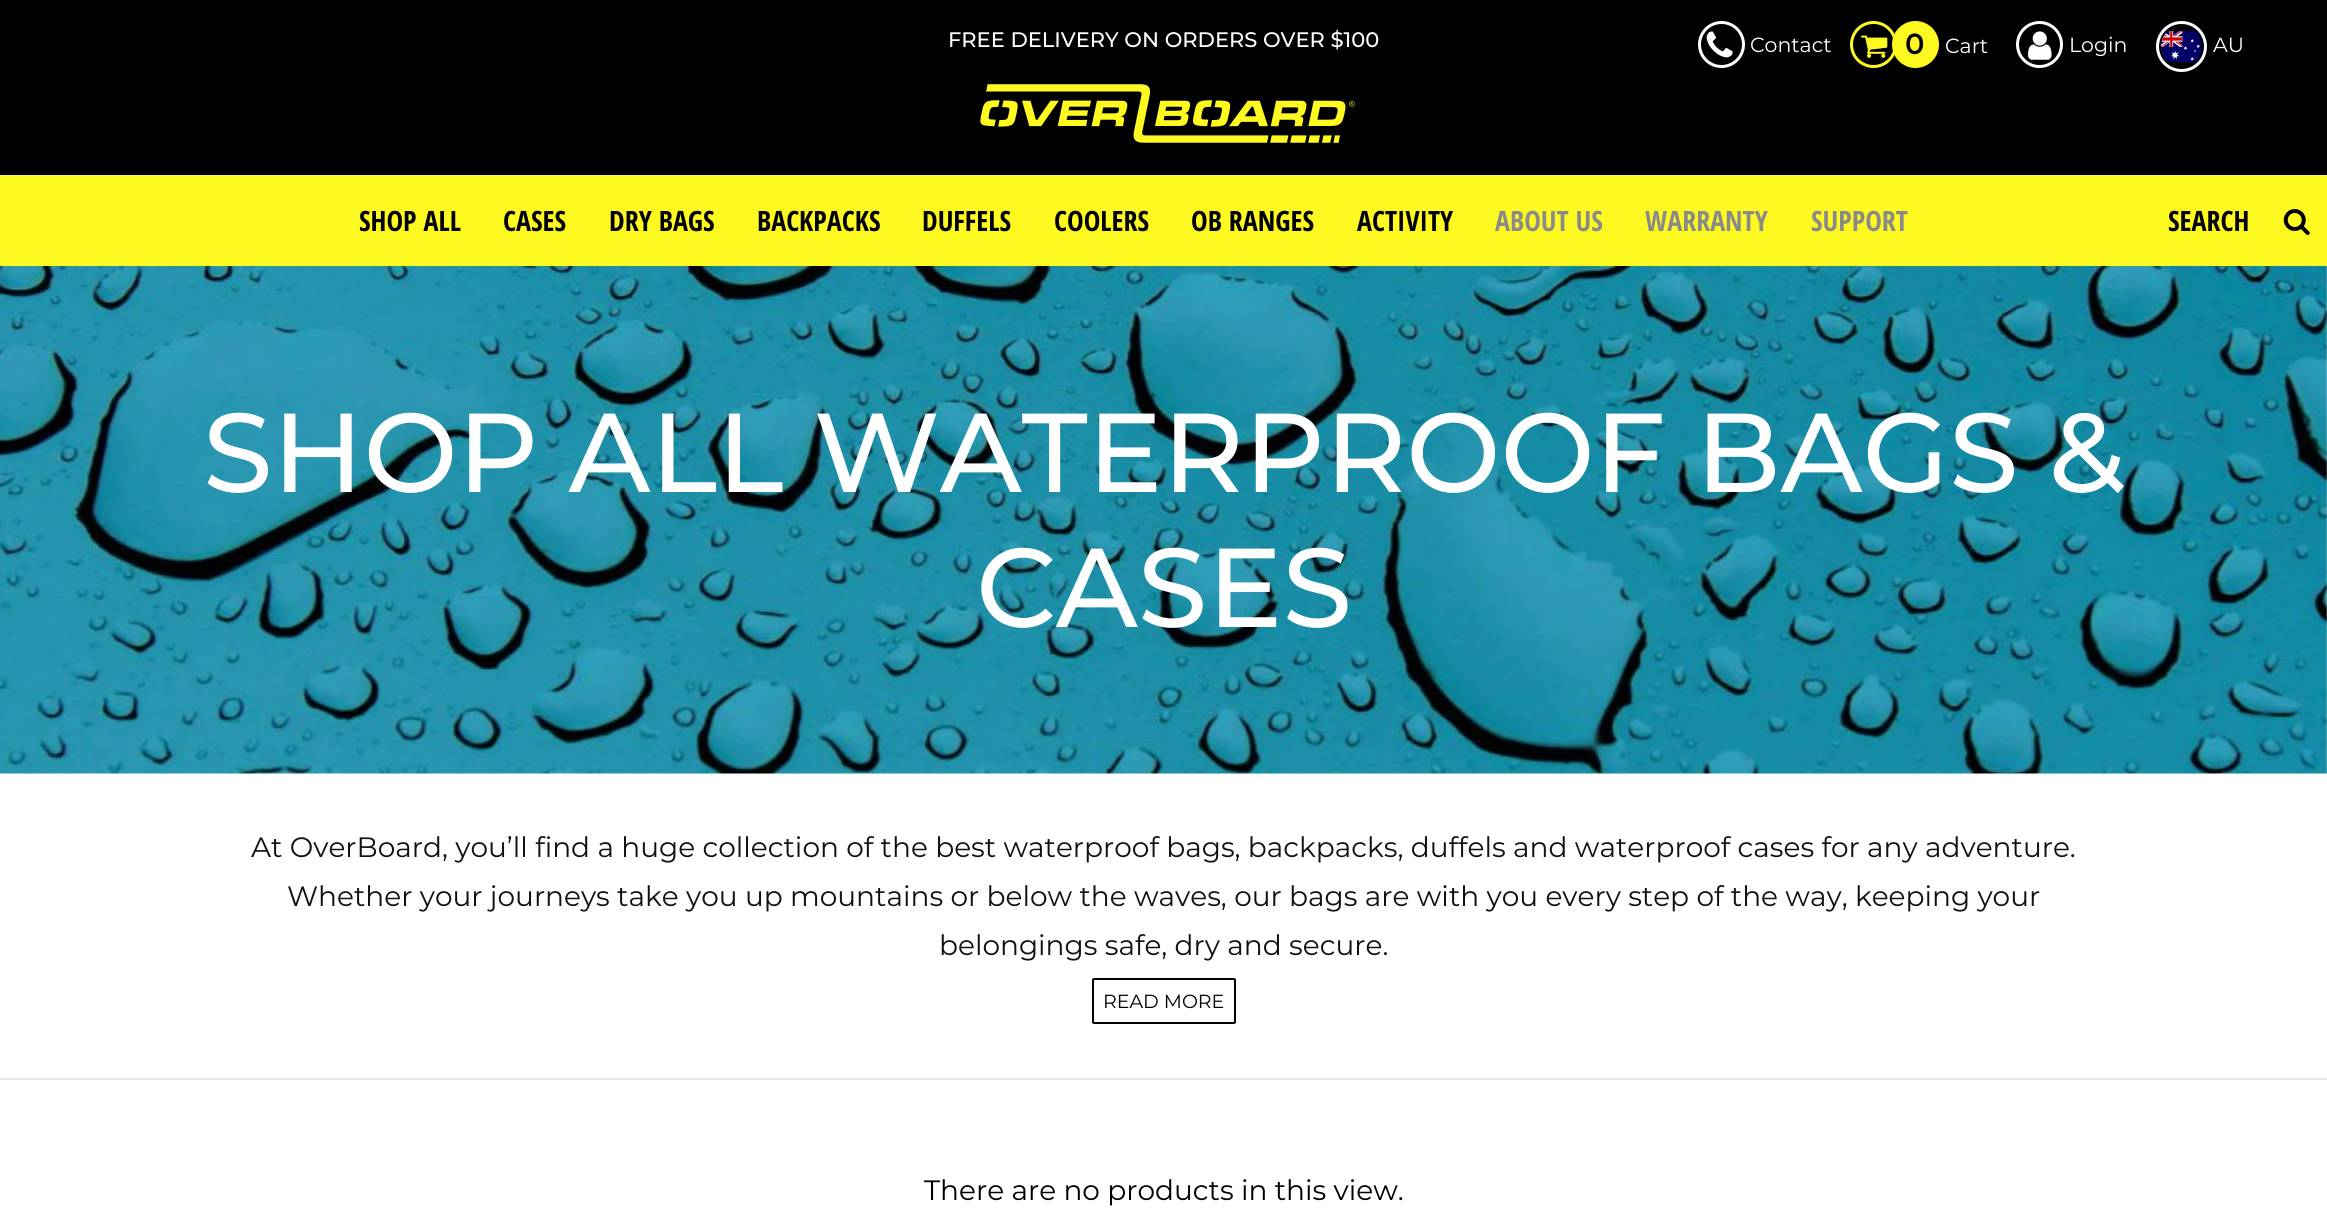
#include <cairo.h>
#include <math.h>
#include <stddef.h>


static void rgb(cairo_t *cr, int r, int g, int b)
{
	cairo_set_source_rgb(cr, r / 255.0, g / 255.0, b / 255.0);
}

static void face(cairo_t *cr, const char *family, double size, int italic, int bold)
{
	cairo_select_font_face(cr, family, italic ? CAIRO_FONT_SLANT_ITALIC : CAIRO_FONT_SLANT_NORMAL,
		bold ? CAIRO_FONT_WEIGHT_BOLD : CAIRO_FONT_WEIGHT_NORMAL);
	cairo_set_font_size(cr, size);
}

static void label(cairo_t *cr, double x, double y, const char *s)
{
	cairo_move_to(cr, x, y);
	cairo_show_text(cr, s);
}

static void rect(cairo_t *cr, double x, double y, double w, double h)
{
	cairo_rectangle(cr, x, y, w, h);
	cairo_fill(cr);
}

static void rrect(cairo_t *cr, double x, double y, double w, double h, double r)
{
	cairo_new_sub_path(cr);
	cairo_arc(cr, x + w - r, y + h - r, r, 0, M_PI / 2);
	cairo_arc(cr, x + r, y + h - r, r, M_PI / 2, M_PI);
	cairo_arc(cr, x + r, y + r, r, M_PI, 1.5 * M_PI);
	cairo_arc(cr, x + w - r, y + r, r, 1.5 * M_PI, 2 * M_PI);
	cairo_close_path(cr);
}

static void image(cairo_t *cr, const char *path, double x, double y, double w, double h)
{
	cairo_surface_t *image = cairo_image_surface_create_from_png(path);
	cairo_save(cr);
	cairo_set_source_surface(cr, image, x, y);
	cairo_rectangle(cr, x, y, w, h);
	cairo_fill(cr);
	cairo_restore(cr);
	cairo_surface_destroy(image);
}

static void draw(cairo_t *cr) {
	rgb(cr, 255, 255, 255);
	cairo_paint(cr);
	rgb(cr, 0, 0, 0);
	rect(cr, 0, 0, 2327, 175);
	face(cr, "Montserrat Thin", 21, 0, 0);
	rgb(cr, 255, 255, 255);
	label(cr, 948, 47, "FREE DELIVERY ON ORDERS OVER $100");
	cairo_new_path(cr);
	cairo_arc(cr, 1721.5, 44.5, 22, 0, 2 * M_PI);
	cairo_set_line_width(cr, 3);
	cairo_stroke(cr);
	image(cr, "image0.png", 1706, 31, 27, 27);
	face(cr, "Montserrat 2 Thin", 20.5, 0, 0);
	label(cr, 1750, 52, "Contact");
	cairo_new_path(cr);
	cairo_arc(cr, 1873.5, 44.5, 22, 0, 2 * M_PI);
	rgb(cr, 255, 249, 34);
	cairo_stroke(cr);
	image(cr, "image1.png", 1861, 35, 27, 23);
	cairo_arc(cr, 1915.5, 44.5, 23.5, 0, 2 * M_PI);
	cairo_fill(cr);
	face(cr, "Montserrat", 28, 0, 1);
	rgb(cr, 0, 0, 0);
	label(cr, 1905, 54, "0");
	face(cr, "Montserrat 2 Thin", 20.5, 0, 0);
	rgb(cr, 255, 255, 255);
	label(cr, 1945, 53, "Cart");
	cairo_new_path(cr);
	cairo_arc(cr, 2039.5, 44.5, 22, 0, 2 * M_PI);
	cairo_stroke(cr);
	image(cr, "image2.png", 2027, 31, 25, 29);
	label(cr, 2069, 52, "Login");
	cairo_new_path(cr);
	cairo_arc(cr, 2181.5, 46.5, 24, 0, 2 * M_PI);
	cairo_stroke(cr);
	image(cr, "image3.png", 2161, 31, 40, 31);
	label(cr, 2213, 52, "AU");
	image(cr, "image4.png", 980, 84, 375, 59);
	rgb(cr, 255, 249, 34);
	rect(cr, 0, 175, 2327, 91);
	face(cr, "Open Sans Condensed", 28, 0, 1);
	rgb(cr, 0, 0, 0);
	label(cr, 359, 231, "SHOP ALL");
	label(cr, 503, 231, "CASES");
	label(cr, 609, 231, "DRY BAGS");
	label(cr, 757, 231, "BACKPACKS");
	label(cr, 922, 231, "DUFFELS");
	label(cr, 1054, 231, "COOLERS");
	label(cr, 1191, 231, "OB RANGES");
	label(cr, 1357, 231, "ACTIVITY");
	rgb(cr, 138, 138, 138);
	label(cr, 1495, 231, "ABOUT US");
	label(cr, 1645, 231, "WARRANTY");
	label(cr, 1811, 231, "SUPPORT");
	rgb(cr, 0, 0, 0);
	label(cr, 2168, 231, "SEARCH");
	image(cr, "image5.png", 2283, 209, 27, 26);
	image(cr, "image6.png", 0, 266, 2327, 508);
	face(cr, "Montserrat Thin", 112, 0, 0);
	rgb(cr, 255, 255, 255);
	label(cr, 203, 492, "SHOP ALL WATERPROOF BAGS &");
	label(cr, 976, 627, "CASES");
	face(cr, "Montserrat 2 Thin", 28, 0, 0);
	rgb(cr, 17, 17, 17);
	label(cr, 251, 857, "At OverBoard, you’ll find a huge collection of the best waterproof bags, backpacks, duffels and waterproof cases for any adventure.");
	label(cr, 287, 906, "Whether your journeys take you up mountains or below the waves, our bags are with you every step of the way, keeping your");
	label(cr, 939, 955, "belongings safe, dry and secure.");
	rrect(cr, 1093, 979, 142, 44, 1);
	rgb(cr, 0, 0, 0);
	cairo_set_line_width(cr, 2);
	cairo_stroke(cr);
	face(cr, "Montserrat 2 Thin", 19, 0, 0);
	label(cr, 1103, 1008, "READ MORE");
	rgb(cr, 233, 233, 233);
	rect(cr, 0, 1078, 2327, 2);
	face(cr, "Montserrat 2 Thin", 28, 0, 0);
	rgb(cr, 0, 0, 0);
	label(cr, 924, 1200, "There are no products in this view.");
}

int main(void) {
	cairo_surface_t *surface = cairo_image_surface_create(CAIRO_FORMAT_RGB24, 2327, 1226);
	cairo_t *cr = cairo_create(surface);
	cairo_font_options_t *options = cairo_font_options_create();
	cairo_font_options_set_hint_metrics(options, CAIRO_HINT_METRICS_OFF);
	cairo_font_options_set_hint_style(options, CAIRO_HINT_STYLE_NONE);
	cairo_set_font_options(cr, options);
	cairo_set_miter_limit(cr, 4);
	draw(cr);
	cairo_surface_write_to_png(surface, "render.png");
	cairo_font_options_destroy(options);
	cairo_destroy(cr);
	cairo_surface_destroy(surface);
	return 0;
}
